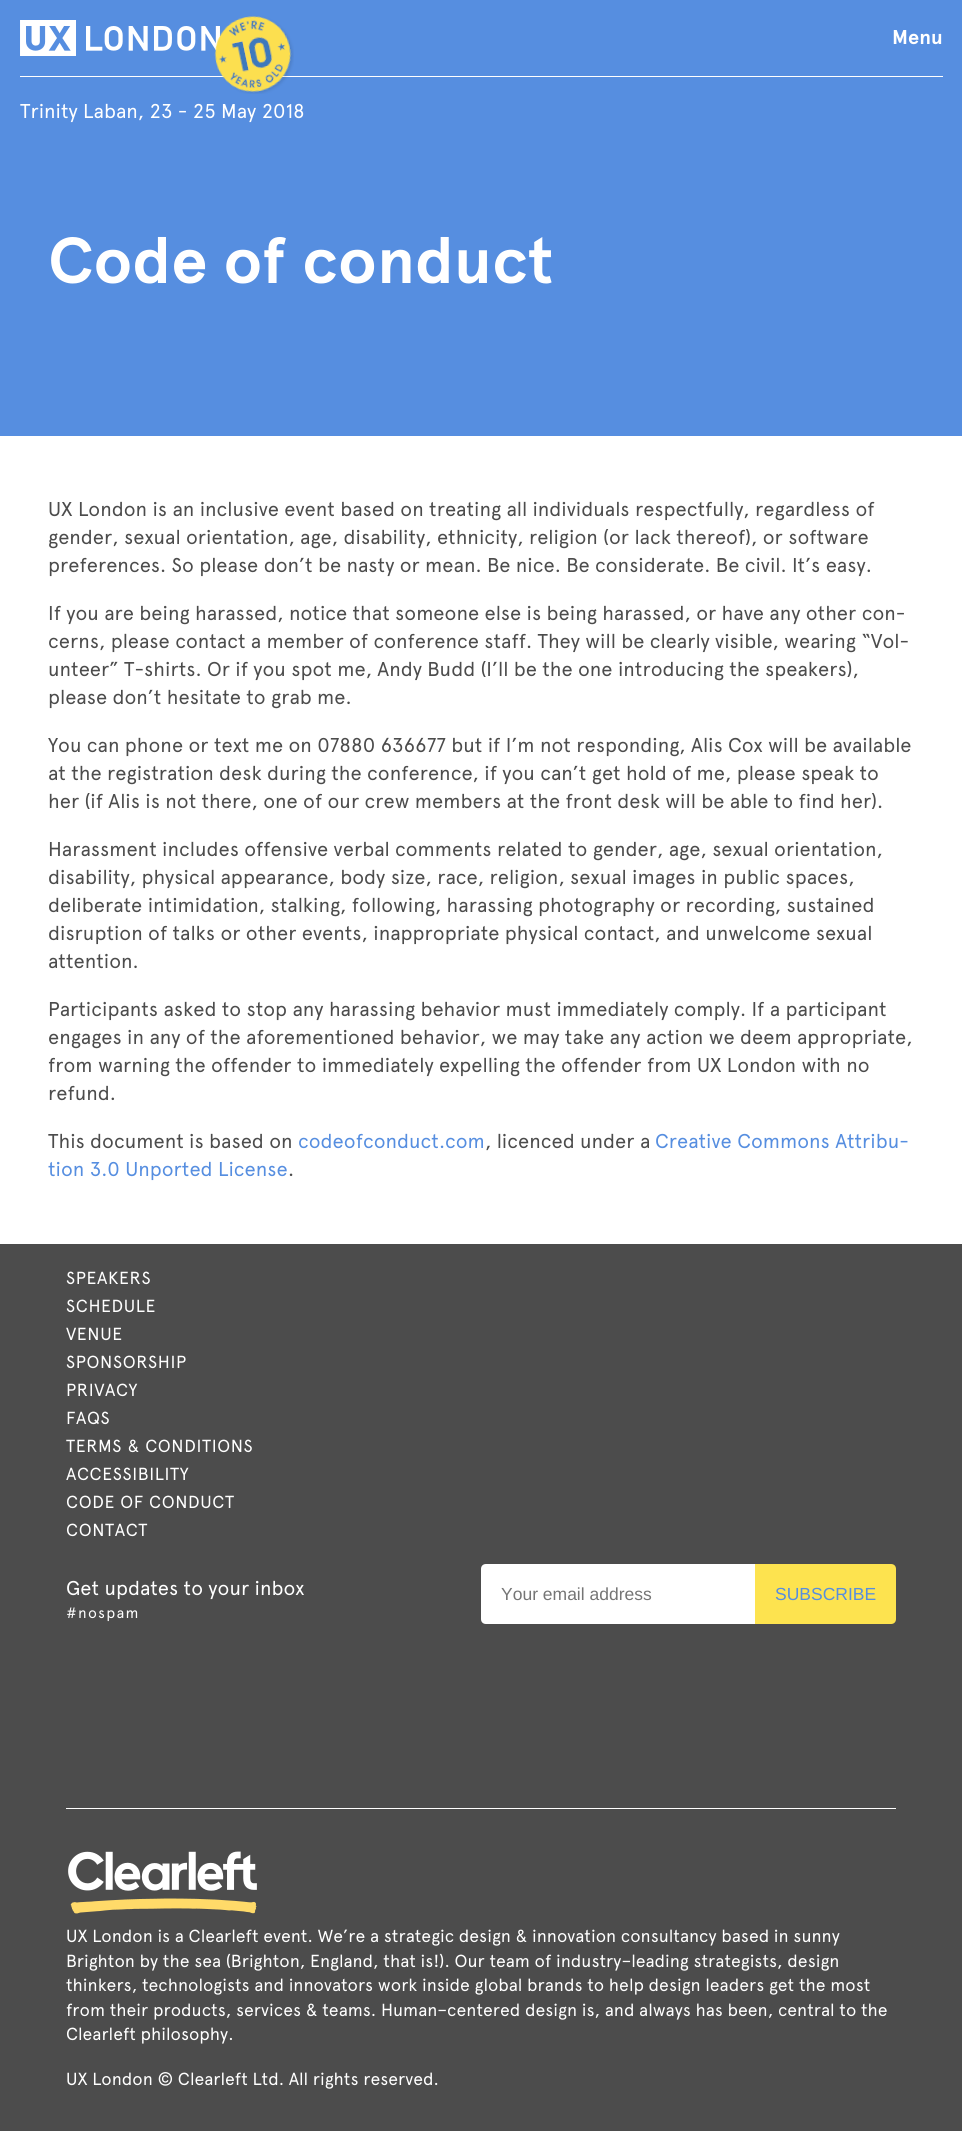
#include <cairo.h>
#include <math.h>
#include <stddef.h>


static void rgb(cairo_t *cr, int r, int g, int b)
{
	cairo_set_source_rgb(cr, r / 255.0, g / 255.0, b / 255.0);
}

static void face(cairo_t *cr, const char *family, double size, int italic, int bold)
{
	cairo_select_font_face(cr, family, italic ? CAIRO_FONT_SLANT_ITALIC : CAIRO_FONT_SLANT_NORMAL,
		bold ? CAIRO_FONT_WEIGHT_BOLD : CAIRO_FONT_WEIGHT_NORMAL);
	cairo_set_font_size(cr, size);
}

static void label(cairo_t *cr, double x, double y, const char *s)
{
	cairo_move_to(cr, x, y);
	cairo_show_text(cr, s);
}

static void tracked(cairo_t *cr, double x, double y, const char *s, double letter, double word)
{
	cairo_move_to(cr, x, y);
	while (*s) {
		char ch[5] = {0};
		int n = 0;
		do ch[n++] = *s++; while ((*s & 0xC0) == 0x80);
		cairo_show_text(cr, ch);
		cairo_rel_move_to(cr, letter + word * (*ch == ' '), 0);
	}
}

static void rect(cairo_t *cr, double x, double y, double w, double h)
{
	cairo_rectangle(cr, x, y, w, h);
	cairo_fill(cr);
}

static void image(cairo_t *cr, const char *path, double x, double y, double w, double h)
{
	cairo_surface_t *image = cairo_image_surface_create_from_png(path);
	cairo_save(cr);
	cairo_set_source_surface(cr, image, x, y);
	cairo_rectangle(cr, x, y, w, h);
	cairo_fill(cr);
	cairo_restore(cr);
	cairo_surface_destroy(image);
}

static void draw(cairo_t *cr) {
	rgb(cr, 255, 255, 255);
	cairo_paint(cr);
	rgb(cr, 86, 142, 224);
	rect(cr, 0, 0, 962, 436);
	rgb(cr, 255, 255, 255);
	rect(cr, 20, 76, 923, 1);
	image(cr, "image0.png", 20, 20, 200, 36);
	image(cr, "image1.png", 214, 15, 80, 79);
	face(cr, "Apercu", 20, 0, 1);
	label(cr, 892, 44, "Menu");
	face(cr, "Apercu", 20, 0, 0);
	label(cr, 20, 118, "Trinity Laban, 23 - 25 May 2018");
	face(cr, "Apercu", 65, 0, 1);
	label(cr, 48, 283, "Code of conduct");
	face(cr, "Apercu", 20, 0, 0);
	rgb(cr, 76, 76, 76);
	label(cr, 48, 516, "UX London is an inclusive event based on treating all individuals respectfully, regardless of");
	label(cr, 48, 544, "gender, sexual orientation, age, disability, ethnicity, religion (or lack thereof), or software");
	label(cr, 48, 572, "preferences. So please don’t be nasty or mean. Be nice. Be considerate. Be civil. It’s easy.");
	label(cr, 48, 620, "If you are being harassed, notice that someone else is being harassed, or have any other con-");
	label(cr, 48, 648, "cerns, please contact a member of conference staff. They will be clearly visible, wearing “Vol-");
	label(cr, 48, 676, "unteer” T-shirts. Or if you spot me, Andy Budd (I’ll be the one introducing the speakers),");
	label(cr, 48, 704, "please don’t hesitate to grab me.");
	label(cr, 48, 752, "You can phone or text me on 07880 636677 but if I’m not responding, Alis Cox will be available");
	label(cr, 48, 780, "at the registration desk during the conference, if you can’t get hold of me, please speak to");
	label(cr, 48, 808, "her (if Alis is not there, one of our crew members at the front desk will be able to find her).");
	label(cr, 48, 856, "Harassment includes offensive verbal comments related to gender, age, sexual orientation,");
	label(cr, 48, 884, "disability, physical appearance, body size, race, religion, sexual images in public spaces,");
	label(cr, 48, 912, "deliberate intimidation, stalking, following, harassing photography or recording, sustained");
	label(cr, 48, 940, "disruption of talks or other events, inappropriate physical contact, and unwelcome sexual");
	label(cr, 48, 968, "attention.");
	label(cr, 48, 1016, "Participants asked to stop any harassing behavior must immediately comply. If a participant");
	label(cr, 48, 1044, "engages in any of the aforementioned behavior, we may take any action we deem appropriate,");
	label(cr, 48, 1072, "from warning the offender to immediately expelling the offender from UX London with no");
	label(cr, 48, 1100, "refund.");
	label(cr, 48, 1148, "This document is based on");
	rgb(cr, 86, 142, 224);
	label(cr, 298, 1148, "codeofconduct.com");
	rgb(cr, 76, 76, 76);
	label(cr, 485, 1148, ", licenced under a");
	rgb(cr, 86, 142, 224);
	label(cr, 655, 1148, "Creative Commons Attribu-");
	label(cr, 48, 1176, "tion 3.0 Unported License");
	rgb(cr, 76, 76, 76);
	label(cr, 288, 1176, ".");
	rect(cr, 0, 1244, 962, 887);
	face(cr, "Apercu", 17.5, 0, 0);
	rgb(cr, 255, 255, 255);
	tracked(cr, 66, 1284, "SPEAKERS", 0.6, 0);
	tracked(cr, 66, 1312, "SCHEDULE", 0.6, 0);
	tracked(cr, 66, 1340, "VENUE", 0.6, 0);
	tracked(cr, 66, 1368, "SPONSORSHIP", 0.6, 0);
	tracked(cr, 66, 1396, "PRIVACY", 0.6, 0);
	tracked(cr, 66, 1424, "FAQS", 0.6, 0);
	tracked(cr, 66, 1452, "TERMS & CONDITIONS", 0.6, 0);
	tracked(cr, 66, 1480, "ACCESSIBILITY", 0.6, 0);
	tracked(cr, 66, 1508, "CODE OF CONDUCT", 0.6, 0);
	tracked(cr, 66, 1536, "CONTACT", 0.6, 0);
	face(cr, "Apercu", 20, 0, 0);
	label(cr, 66, 1595, "Get updates to your inbox");
	face(cr, "Apercu", 15, 0, 0);
	tracked(cr, 66, 1618, "#nospam", 1.25, 0);
	cairo_new_path(cr);
	cairo_move_to(cr, 486, 1564);
	cairo_line_to(cr, 755, 1564);
	cairo_line_to(cr, 755, 1624);
	cairo_line_to(cr, 486, 1624);
	cairo_curve_to(cr, 483, 1624, 481, 1622, 481, 1619);
	cairo_line_to(cr, 481, 1569);
	cairo_curve_to(cr, 481, 1566, 483, 1564, 486, 1564);
	cairo_close_path(cr);
	cairo_fill(cr);
	face(cr, "Liberation Sans", 17.5, 0, 0);
	rgb(cr, 117, 117, 117);
	label(cr, 501, 1600, "Your email address");
	rgb(cr, 253, 227, 79);
	cairo_new_path(cr);
	cairo_move_to(cr, 755, 1564);
	cairo_line_to(cr, 891, 1564);
	cairo_curve_to(cr, 894, 1564, 896, 1566, 896, 1569);
	cairo_line_to(cr, 896, 1619);
	cairo_curve_to(cr, 896, 1622, 894, 1624, 891, 1624);
	cairo_line_to(cr, 755, 1624);
	cairo_close_path(cr);
	cairo_fill(cr);
	rgb(cr, 86, 142, 224);
	label(cr, 775, 1600, "SUBSCRIBE");
	rgb(cr, 255, 255, 255);
	rect(cr, 66, 1808, 830, 1);
	image(cr, "image2.png", 68, 1851, 189, 63);
	face(cr, "Apercu", 17.5, 0, 0);
	label(cr, 66, 1942, "UX London is a Clearleft event. We’re a strategic design & innovation consultancy based in sunny");
	label(cr, 66, 1967, "Brighton by the sea (Brighton, England, that is!). Our team of industry–leading strategists, design");
	label(cr, 66, 1991, "thinkers, technologists and innovators work inside global brands to help design leaders get the most");
	label(cr, 66, 2016, "from their products, services & teams. Human–centered design is, and always has been, central to the");
	label(cr, 66, 2040, "Clearleft philosophy.");
	label(cr, 66, 2085, "UX London © Clearleft Ltd. All rights reserved.");
}

int main(void) {
	cairo_surface_t *surface = cairo_image_surface_create(CAIRO_FORMAT_RGB24, 962, 2135);
	cairo_t *cr = cairo_create(surface);
	cairo_font_options_t *options = cairo_font_options_create();
	cairo_font_options_set_hint_metrics(options, CAIRO_HINT_METRICS_OFF);
	cairo_font_options_set_hint_style(options, CAIRO_HINT_STYLE_NONE);
	cairo_set_font_options(cr, options);
	cairo_set_miter_limit(cr, 4);
	draw(cr);
	cairo_surface_write_to_png(surface, "render.png");
	cairo_font_options_destroy(options);
	cairo_destroy(cr);
	cairo_surface_destroy(surface);
	return 0;
}
